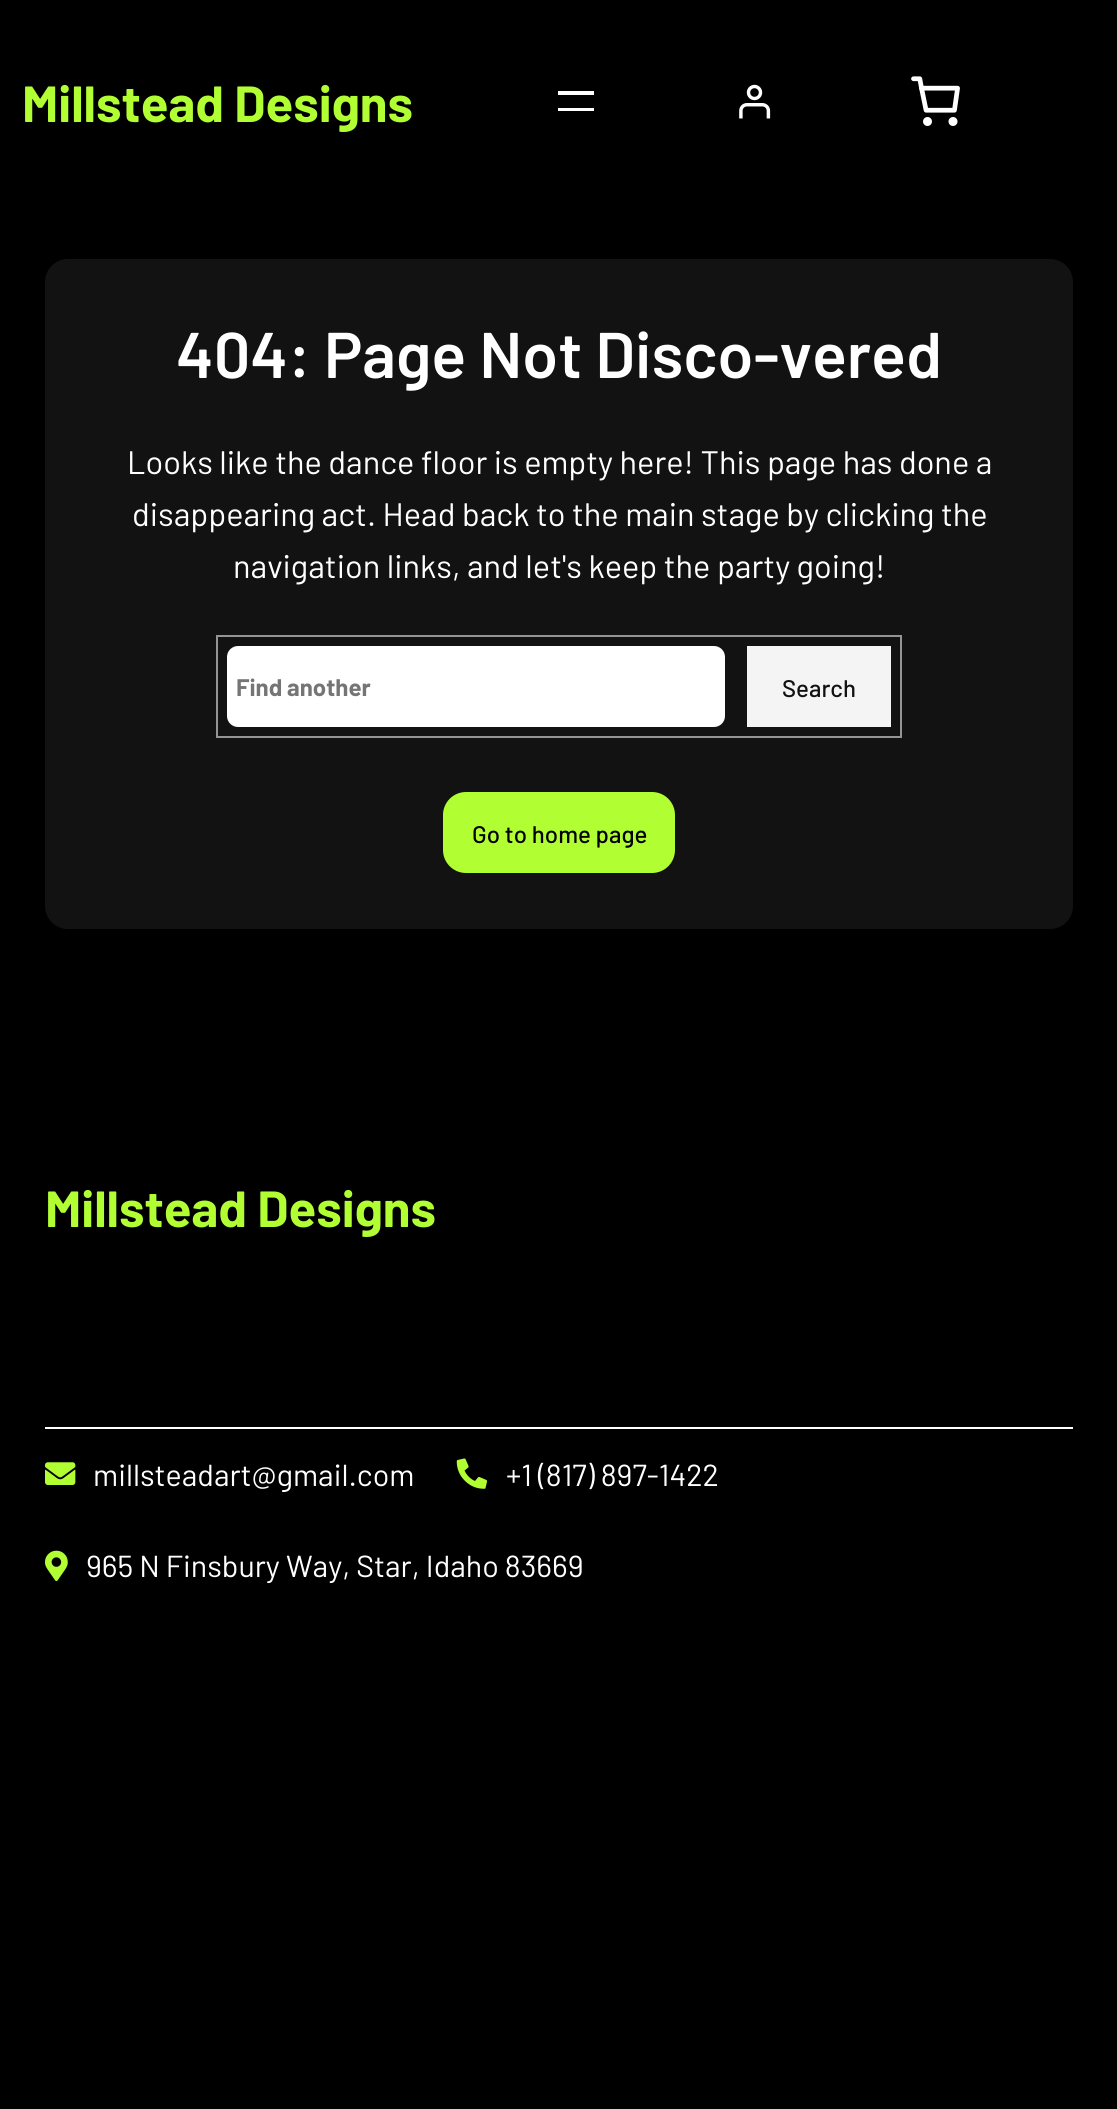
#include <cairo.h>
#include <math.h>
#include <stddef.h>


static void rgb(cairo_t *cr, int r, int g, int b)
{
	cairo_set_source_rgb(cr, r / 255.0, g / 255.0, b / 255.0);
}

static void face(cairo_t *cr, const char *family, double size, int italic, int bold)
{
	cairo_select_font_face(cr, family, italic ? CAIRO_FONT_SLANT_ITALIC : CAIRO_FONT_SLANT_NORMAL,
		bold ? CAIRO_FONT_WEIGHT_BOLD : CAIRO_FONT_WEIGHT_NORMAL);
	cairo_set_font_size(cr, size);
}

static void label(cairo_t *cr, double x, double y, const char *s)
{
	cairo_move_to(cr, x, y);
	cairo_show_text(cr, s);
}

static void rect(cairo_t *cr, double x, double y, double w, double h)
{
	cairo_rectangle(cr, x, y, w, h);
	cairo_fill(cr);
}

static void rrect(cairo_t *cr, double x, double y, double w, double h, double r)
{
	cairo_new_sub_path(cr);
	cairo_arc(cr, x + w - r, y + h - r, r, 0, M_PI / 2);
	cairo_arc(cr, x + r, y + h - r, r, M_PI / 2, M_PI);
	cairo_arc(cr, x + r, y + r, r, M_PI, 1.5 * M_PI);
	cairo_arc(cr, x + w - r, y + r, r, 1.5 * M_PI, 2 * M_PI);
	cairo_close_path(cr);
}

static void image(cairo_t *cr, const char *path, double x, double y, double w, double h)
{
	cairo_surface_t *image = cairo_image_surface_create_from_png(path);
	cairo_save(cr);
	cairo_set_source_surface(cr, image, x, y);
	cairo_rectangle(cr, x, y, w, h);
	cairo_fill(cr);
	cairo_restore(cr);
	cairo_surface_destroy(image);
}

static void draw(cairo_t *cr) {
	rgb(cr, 0, 0, 0);
	cairo_paint(cr);
	face(cr, "Barlow", 50.75, 0, 1);
	rgb(cr, 177, 255, 51);
	label(cr, 22, 122, "Millstead Designs");
	rgb(cr, 255, 255, 255);
	rect(cr, 558, 91, 36, 4);
	rect(cr, 558, 108, 36, 3);
	image(cr, "image0.png", 739, 84, 32, 35);
	image(cr, "image1.png", 911, 76, 49, 50);
	rgb(cr, 18, 18, 18);
	rrect(cr, 45, 259, 1028, 670, 23);
	cairo_fill(cr);
	face(cr, "Barlow SemiBold", 64.5, 0, 0);
	rgb(cr, 255, 255, 255);
	label(cr, 176, 378, "404: Page Not Disco-vered");
	face(cr, "Barlow", 32.5, 0, 0);
	label(cr, 127, 474, "Looks like the dance floor is empty here! This page has done a");
	label(cr, 132, 526, "disappearing act. Head back to the main stage by clicking the");
	label(cr, 233, 578, "navigation links, and let's keep the party going!");
	cairo_rectangle(cr, 217, 636, 684, 101);
	rgb(cr, 148, 148, 148);
	cairo_stroke(cr);
	rgb(cr, 255, 255, 255);
	rrect(cr, 227, 646, 498, 81, 11);
	cairo_fill(cr);
	face(cr, "Barlow", 24, 0, 1);
	rgb(cr, 117, 117, 117);
	label(cr, 236, 696, "Find another");
	rgb(cr, 244, 244, 244);
	rect(cr, 747, 646, 144, 81);
	face(cr, "Barlow Medium", 24, 0, 0);
	rgb(cr, 17, 17, 17);
	label(cr, 782, 697, "Search");
	rgb(cr, 177, 255, 51);
	rrect(cr, 443, 792, 232, 81, 23);
	cairo_fill(cr);
	rgb(cr, 0, 0, 0);
	label(cr, 472, 843, "Go to home page");
	face(cr, "Barlow", 50.75, 0, 1);
	rgb(cr, 177, 255, 51);
	label(cr, 45, 1227, "Millstead Designs");
	rgb(cr, 255, 255, 255);
	rect(cr, 45, 1427, 1028, 2);
	image(cr, "image2.png", 45, 1462, 31, 23);
	face(cr, "Barlow", 30.4, 0, 0);
	label(cr, 93, 1486, "millsteadart@gmail.com");
	image(cr, "image3.png", 456, 1458, 32, 31);
	label(cr, 506, 1486, "+1 (817) 897-1422");
	image(cr, "image4.png", 45, 1550, 23, 31);
	label(cr, 86, 1577, "965 N Finsbury Way, Star, Idaho 83669");
}

int main(void) {
	cairo_surface_t *surface = cairo_image_surface_create(CAIRO_FORMAT_RGB24, 1117, 2109);
	cairo_t *cr = cairo_create(surface);
	cairo_font_options_t *options = cairo_font_options_create();
	cairo_font_options_set_hint_metrics(options, CAIRO_HINT_METRICS_OFF);
	cairo_font_options_set_hint_style(options, CAIRO_HINT_STYLE_NONE);
	cairo_set_font_options(cr, options);
	cairo_set_miter_limit(cr, 4);
	draw(cr);
	cairo_surface_write_to_png(surface, "render.png");
	cairo_font_options_destroy(options);
	cairo_destroy(cr);
	cairo_surface_destroy(surface);
	return 0;
}
